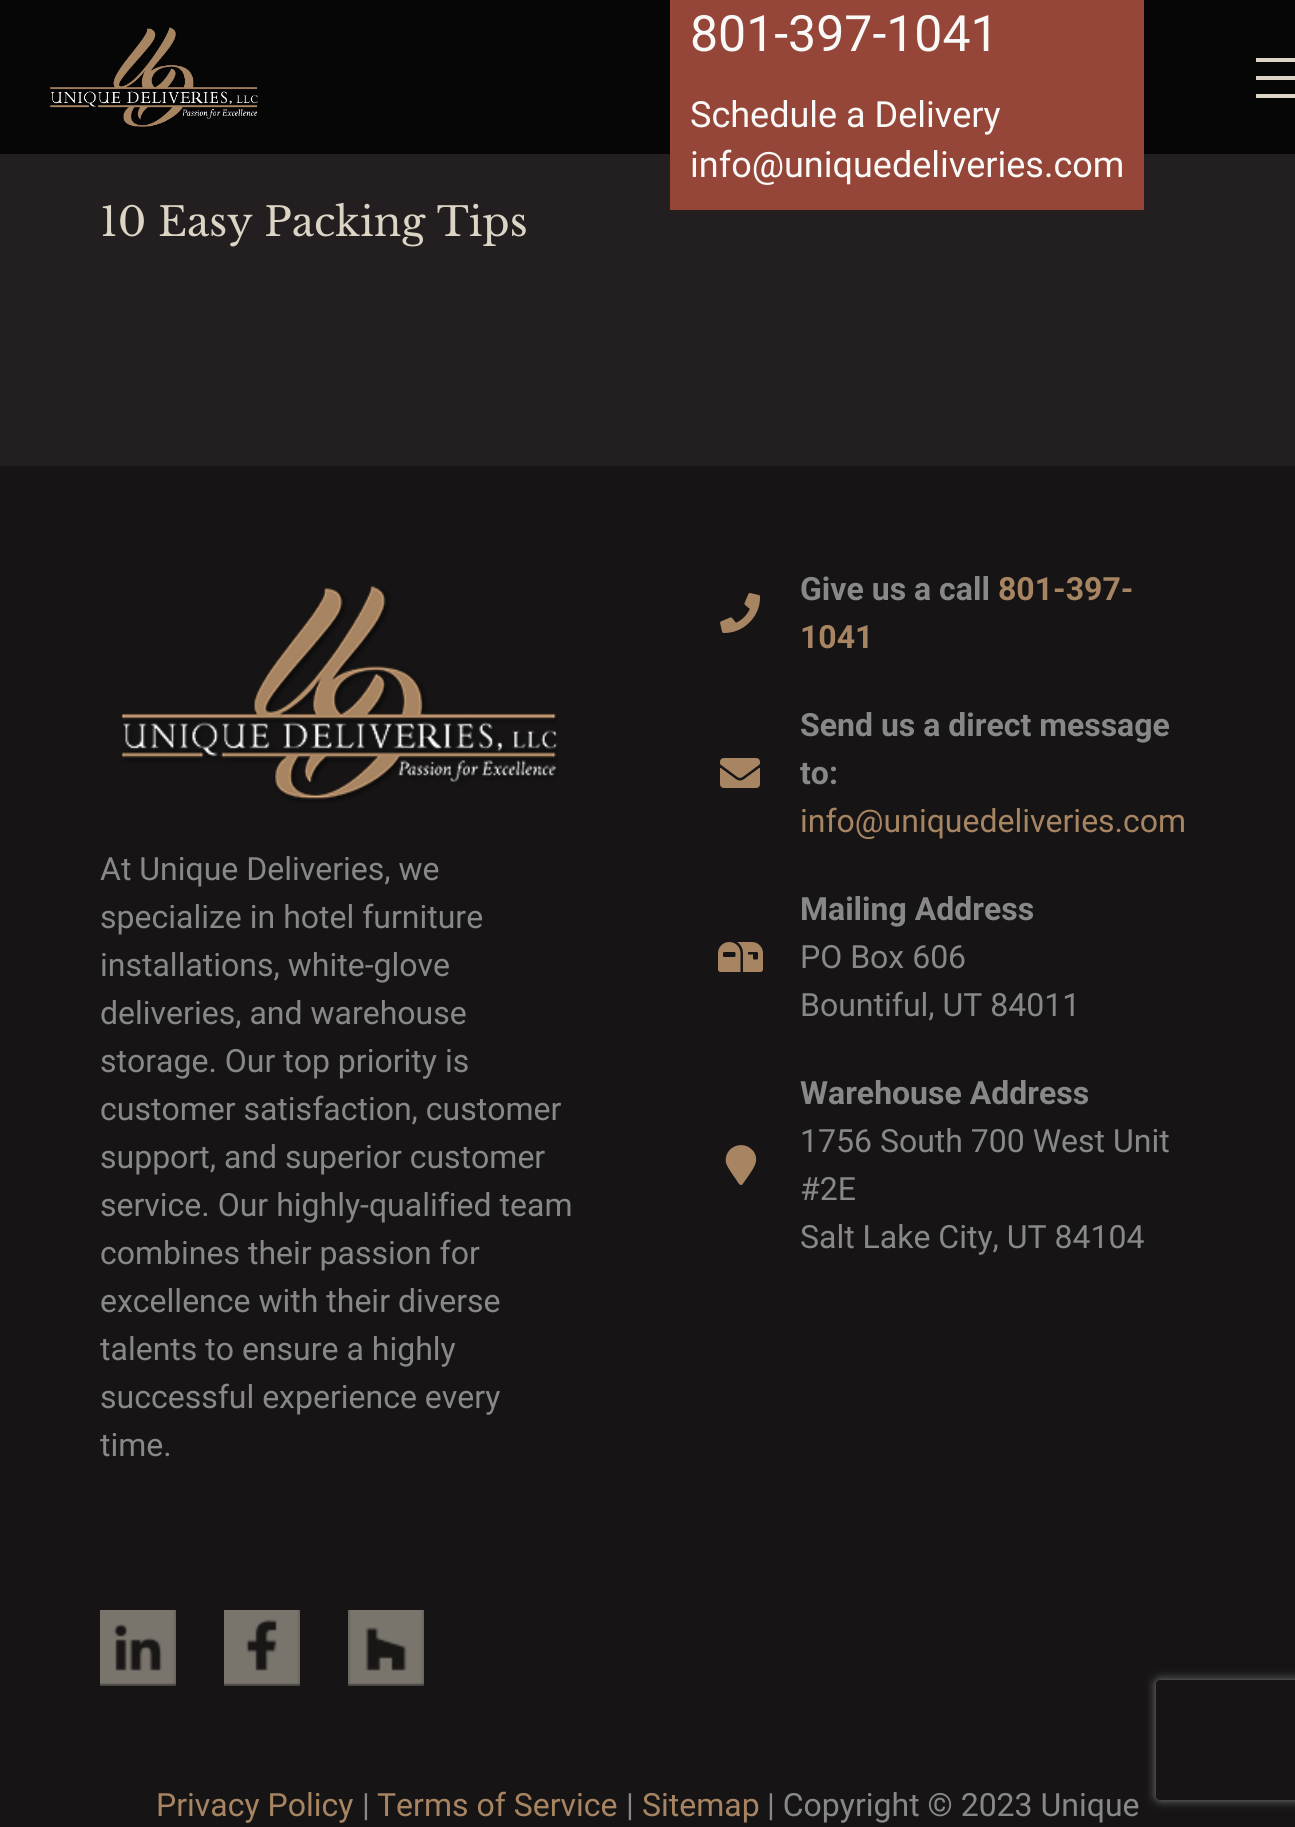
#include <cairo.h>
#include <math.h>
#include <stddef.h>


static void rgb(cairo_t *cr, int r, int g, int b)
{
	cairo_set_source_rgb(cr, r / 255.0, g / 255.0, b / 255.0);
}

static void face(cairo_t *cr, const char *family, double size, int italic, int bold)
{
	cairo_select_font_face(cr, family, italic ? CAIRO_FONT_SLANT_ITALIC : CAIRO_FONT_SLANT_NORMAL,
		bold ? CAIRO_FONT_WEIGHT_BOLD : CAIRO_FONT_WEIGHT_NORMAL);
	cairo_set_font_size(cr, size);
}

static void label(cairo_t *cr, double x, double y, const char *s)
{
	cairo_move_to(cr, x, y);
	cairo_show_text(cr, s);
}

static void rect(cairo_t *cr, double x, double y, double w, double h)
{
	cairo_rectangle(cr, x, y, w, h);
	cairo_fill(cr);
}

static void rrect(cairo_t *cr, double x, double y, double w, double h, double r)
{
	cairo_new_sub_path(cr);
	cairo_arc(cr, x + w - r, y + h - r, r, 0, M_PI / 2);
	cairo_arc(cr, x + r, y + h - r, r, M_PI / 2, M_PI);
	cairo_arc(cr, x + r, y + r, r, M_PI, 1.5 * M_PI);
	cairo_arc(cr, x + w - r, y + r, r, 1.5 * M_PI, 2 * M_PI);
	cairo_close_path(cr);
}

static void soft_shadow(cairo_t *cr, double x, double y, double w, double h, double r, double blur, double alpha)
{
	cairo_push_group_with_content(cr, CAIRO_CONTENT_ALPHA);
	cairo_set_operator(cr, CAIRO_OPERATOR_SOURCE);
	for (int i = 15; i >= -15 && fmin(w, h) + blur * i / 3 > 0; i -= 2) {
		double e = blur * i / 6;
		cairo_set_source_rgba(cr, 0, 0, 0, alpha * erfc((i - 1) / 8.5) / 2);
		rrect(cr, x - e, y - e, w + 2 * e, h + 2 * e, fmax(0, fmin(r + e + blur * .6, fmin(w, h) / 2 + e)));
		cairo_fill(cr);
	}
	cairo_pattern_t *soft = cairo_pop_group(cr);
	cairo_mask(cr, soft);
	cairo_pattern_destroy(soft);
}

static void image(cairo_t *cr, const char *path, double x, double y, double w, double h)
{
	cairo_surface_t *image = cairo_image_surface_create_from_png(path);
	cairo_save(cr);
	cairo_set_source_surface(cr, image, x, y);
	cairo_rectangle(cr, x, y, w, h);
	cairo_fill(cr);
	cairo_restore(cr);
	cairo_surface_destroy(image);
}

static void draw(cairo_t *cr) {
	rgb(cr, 35, 31, 32);
	cairo_paint(cr);
	rgb(cr, 7, 6, 6);
	rect(cr, 0, 0, 1295, 154);
	image(cr, "image0.png", 50, 27, 208, 100);
	rgb(cr, 149, 70, 57);
	rect(cr, 670, 0, 474, 210);
	face(cr, "Roboto", 50, 0, 0);
	rgb(cr, 249, 249, 248);
	label(cr, 690, 51, "801-397-1041");
	face(cr, "Roboto", 36, 0, 0);
	label(cr, 690, 127, "Schedule a Delivery");
	label(cr, 690, 177, "info@uniquedeliveries.com");
	rgb(cr, 220, 212, 197);
	rect(cr, 1256, 58, 39, 4);
	rect(cr, 1256, 76, 39, 4);
	rect(cr, 1256, 94, 39, 4);
	face(cr, "Libre Baskerville", 40, 0, 0);
	label(cr, 100, 236, "10 Easy Packing Tips");
	rgb(cr, 22, 20, 20);
	rect(cr, 0, 466, 1295, 1361);
	image(cr, "image1.png", 121, 586, 437, 217);
	face(cr, "Roboto", 32, 0, 0);
	rgb(cr, 136, 136, 136);
	label(cr, 100, 880, "At Unique Deliveries, we");
	label(cr, 100, 928, "specialize in hotel furniture");
	label(cr, 100, 976, "installations, white-glove");
	label(cr, 100, 1024, "deliveries, and warehouse");
	label(cr, 100, 1072, "storage. Our top priority is");
	label(cr, 100, 1120, "customer satisfaction, customer");
	label(cr, 100, 1168, "support, and superior customer");
	label(cr, 100, 1216, "service. Our highly-qualified team");
	label(cr, 100, 1264, "combines their passion for");
	label(cr, 100, 1312, "excellence with their diverse");
	label(cr, 100, 1360, "talents to ensure a highly");
	label(cr, 100, 1408, "successful experience every");
	label(cr, 100, 1456, "time.");
	image(cr, "image2.png", 720, 593, 41, 40);
	face(cr, "Roboto", 32, 0, 1);
	label(cr, 800, 600, "Give us a call");
	rgb(cr, 167, 132, 98);
	label(cr, 998, 600, "801-397-");
	label(cr, 800, 648, "1041");
	image(cr, "image3.png", 720, 758, 40, 30);
	rgb(cr, 136, 136, 136);
	label(cr, 800, 736, "Send us a direct message");
	label(cr, 800, 784, "to:");
	face(cr, "Roboto", 32, 0, 0);
	rgb(cr, 167, 132, 98);
	label(cr, 800, 832, "info@uniquedeliveries.com");
	image(cr, "image4.png", 718, 942, 45, 30);
	face(cr, "Roboto", 32, 0, 1);
	rgb(cr, 136, 136, 136);
	label(cr, 800, 920, "Mailing Address");
	face(cr, "Roboto", 32, 0, 0);
	label(cr, 800, 968, "PO Box 606");
	label(cr, 800, 1016, "Bountiful, UT 84011");
	rgb(cr, 167, 132, 98);
	cairo_new_path(cr);
	cairo_move_to(cr, 739, 1184);
	cairo_curve_to(cr, 736, 1179, 728, 1169, 726, 1163);
	cairo_curve_to(cr, 723, 1147, 744, 1138, 754, 1152);
	cairo_curve_to(cr, 760, 1162, 752, 1170, 747, 1178);
	cairo_line_to(cr, 742, 1185);
	cairo_curve_to(cr, 741, 1185, 740, 1185, 739, 1184);
	cairo_close_path(cr);
	cairo_fill(cr);
	face(cr, "Roboto", 32, 0, 1);
	rgb(cr, 136, 136, 136);
	label(cr, 800, 1104, "Warehouse Address");
	face(cr, "Roboto", 32, 0, 0);
	label(cr, 800, 1152, "1756 South 700 West Unit");
	label(cr, 800, 1200, "#2E");
	label(cr, 800, 1248, "Salt Lake City, UT 84104");
	image(cr, "image5.png", 100, 1610, 76, 76);
	image(cr, "image6.png", 224, 1610, 76, 76);
	image(cr, "image7.png", 348, 1610, 76, 76);
	rgb(cr, 167, 132, 98);
	label(cr, 156, 1816, "Privacy Policy");
	rgb(cr, 136, 136, 136);
	label(cr, 362, 1816, "|");
	rgb(cr, 167, 132, 98);
	label(cr, 377, 1816, "Terms of Service");
	rgb(cr, 136, 136, 136);
	label(cr, 626, 1816, "|");
	rgb(cr, 167, 132, 98);
	label(cr, 642, 1816, "Sitemap");
	rgb(cr, 136, 136, 136);
	label(cr, 767, 1816, "| Copyright © 2023 Unique");
	cairo_save(cr);
	cairo_set_fill_rule(cr, CAIRO_FILL_RULE_EVEN_ODD);
	cairo_new_path(cr);
	cairo_move_to(cr, 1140, 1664);
	cairo_line_to(cr, 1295, 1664);
	cairo_line_to(cr, 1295, 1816);
	cairo_line_to(cr, 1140, 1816);
	cairo_close_path(cr);
	cairo_move_to(cr, 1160, 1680);
	cairo_line_to(cr, 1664, 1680);
	cairo_curve_to(cr, 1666, 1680, 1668, 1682, 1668, 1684);
	cairo_line_to(cr, 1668, 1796);
	cairo_curve_to(cr, 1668, 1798, 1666, 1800, 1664, 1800);
	cairo_line_to(cr, 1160, 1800);
	cairo_curve_to(cr, 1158, 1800, 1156, 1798, 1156, 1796);
	cairo_line_to(cr, 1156, 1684);
	cairo_curve_to(cr, 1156, 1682, 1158, 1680, 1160, 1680);
	cairo_close_path(cr);
	cairo_clip(cr);
	rgb(cr, 128, 128, 128);
	soft_shadow(cr, 1156, 1680, 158, 120, 4, 5, 1);
	cairo_restore(cr);
}

int main(void) {
	cairo_surface_t *surface = cairo_image_surface_create(CAIRO_FORMAT_RGB24, 1295, 1827);
	cairo_t *cr = cairo_create(surface);
	cairo_font_options_t *options = cairo_font_options_create();
	cairo_font_options_set_hint_metrics(options, CAIRO_HINT_METRICS_OFF);
	cairo_font_options_set_hint_style(options, CAIRO_HINT_STYLE_NONE);
	cairo_set_font_options(cr, options);
	cairo_set_miter_limit(cr, 4);
	draw(cr);
	cairo_surface_write_to_png(surface, "render.png");
	cairo_font_options_destroy(options);
	cairo_destroy(cr);
	cairo_surface_destroy(surface);
	return 0;
}
